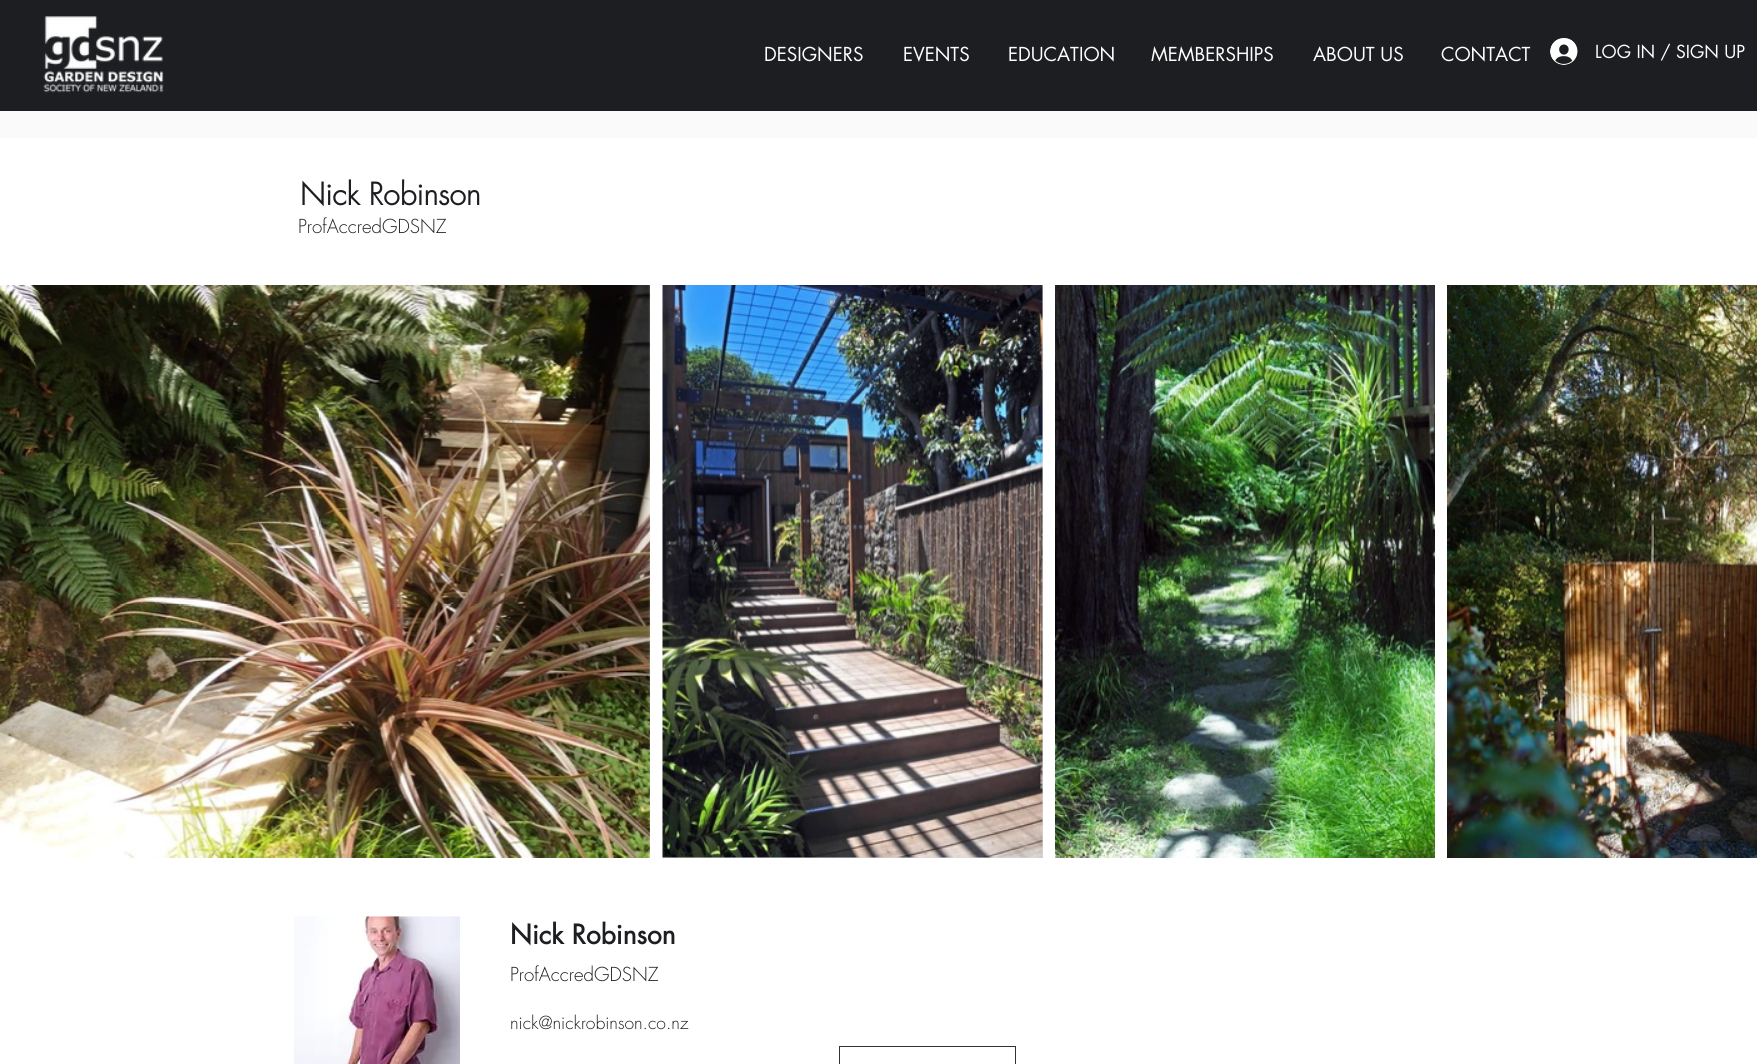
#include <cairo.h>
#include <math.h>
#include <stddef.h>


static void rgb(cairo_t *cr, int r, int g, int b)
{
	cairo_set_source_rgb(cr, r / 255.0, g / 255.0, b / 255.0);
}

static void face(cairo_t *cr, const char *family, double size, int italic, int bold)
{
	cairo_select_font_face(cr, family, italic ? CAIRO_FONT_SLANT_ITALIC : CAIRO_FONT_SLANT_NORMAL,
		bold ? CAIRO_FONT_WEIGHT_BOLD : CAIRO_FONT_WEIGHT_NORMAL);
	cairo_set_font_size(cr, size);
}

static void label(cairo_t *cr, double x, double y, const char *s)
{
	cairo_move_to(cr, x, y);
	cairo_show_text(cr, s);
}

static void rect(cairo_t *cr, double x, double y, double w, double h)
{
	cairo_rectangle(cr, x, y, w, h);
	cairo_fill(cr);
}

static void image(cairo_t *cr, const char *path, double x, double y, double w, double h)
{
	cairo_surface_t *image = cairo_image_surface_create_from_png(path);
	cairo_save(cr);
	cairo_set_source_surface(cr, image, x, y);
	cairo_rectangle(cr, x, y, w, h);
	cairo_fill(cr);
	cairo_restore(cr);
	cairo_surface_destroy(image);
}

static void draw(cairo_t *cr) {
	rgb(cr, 255, 255, 255);
	cairo_paint(cr);
	rgb(cr, 29, 30, 33);
	rect(cr, 0, 0, 1757, 111);
	image(cr, "image0.png", 43, 16, 121, 77);
	face(cr, "futura", 18.75, 0, 0);
	rgb(cr, 255, 255, 255);
	label(cr, 764, 61, "DESIGNERS");
	label(cr, 903, 61, "EVENTS");
	label(cr, 1008, 61, "EDUCATION");
	label(cr, 1151, 61, "MEMBERSHIPS");
	label(cr, 1313, 61, "ABOUT US");
	label(cr, 1441, 61, "CONTACT");
	image(cr, "image1.png", 1550, 38, 28, 27);
	face(cr, "futura", 17.5, 0, 0);
	label(cr, 1595, 58, "LOG IN / SIGN UP");
	rgb(cr, 250, 250, 250);
	rect(cr, 0, 111, 1757, 27);
	face(cr, "futura", 30, 0, 1);
	rgb(cr, 29, 30, 33);
	label(cr, 300, 205, "Nick Robinson");
	face(cr, "futura Light", 18.75, 0, 0);
	label(cr, 298, 233, "ProfAccredGDSNZ");
	image(cr, "image2.png", 0, 285, 650, 573);
	rgb(cr, 213, 216, 224);
	rect(cr, 663, 285, 380, 573);
	image(cr, "image3.png", 662, 285, 381, 573);
	image(cr, "image4.png", 1055, 285, 380, 573);
	image(cr, "image5.png", 1447, 285, 310, 573);
	image(cr, "image6.png", 294, 916, 166, 148);
	face(cr, "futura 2", 26.25, 0, 1);
	rgb(cr, 29, 30, 33);
	label(cr, 510, 944, "Nick Robinson");
	face(cr, "futura Light", 18.75, 0, 0);
	label(cr, 510, 981, "ProfAccredGDSNZ");
	face(cr, "futura Light", 17.5, 0, 0);
	label(cr, 510, 1029, "nick@nickrobinson.co.nz");
	cairo_rectangle(cr, 839.5, 1046.5, 176, 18);
	rgb(cr, 50, 50, 50);
	cairo_set_line_width(cr, 1);
	cairo_stroke(cr);
}

int main(void) {
	cairo_surface_t *surface = cairo_image_surface_create(CAIRO_FORMAT_RGB24, 1757, 1064);
	cairo_t *cr = cairo_create(surface);
	cairo_font_options_t *options = cairo_font_options_create();
	cairo_font_options_set_hint_metrics(options, CAIRO_HINT_METRICS_OFF);
	cairo_font_options_set_hint_style(options, CAIRO_HINT_STYLE_NONE);
	cairo_set_font_options(cr, options);
	cairo_set_miter_limit(cr, 4);
	draw(cr);
	cairo_surface_write_to_png(surface, "render.png");
	cairo_font_options_destroy(options);
	cairo_destroy(cr);
	cairo_surface_destroy(surface);
	return 0;
}
